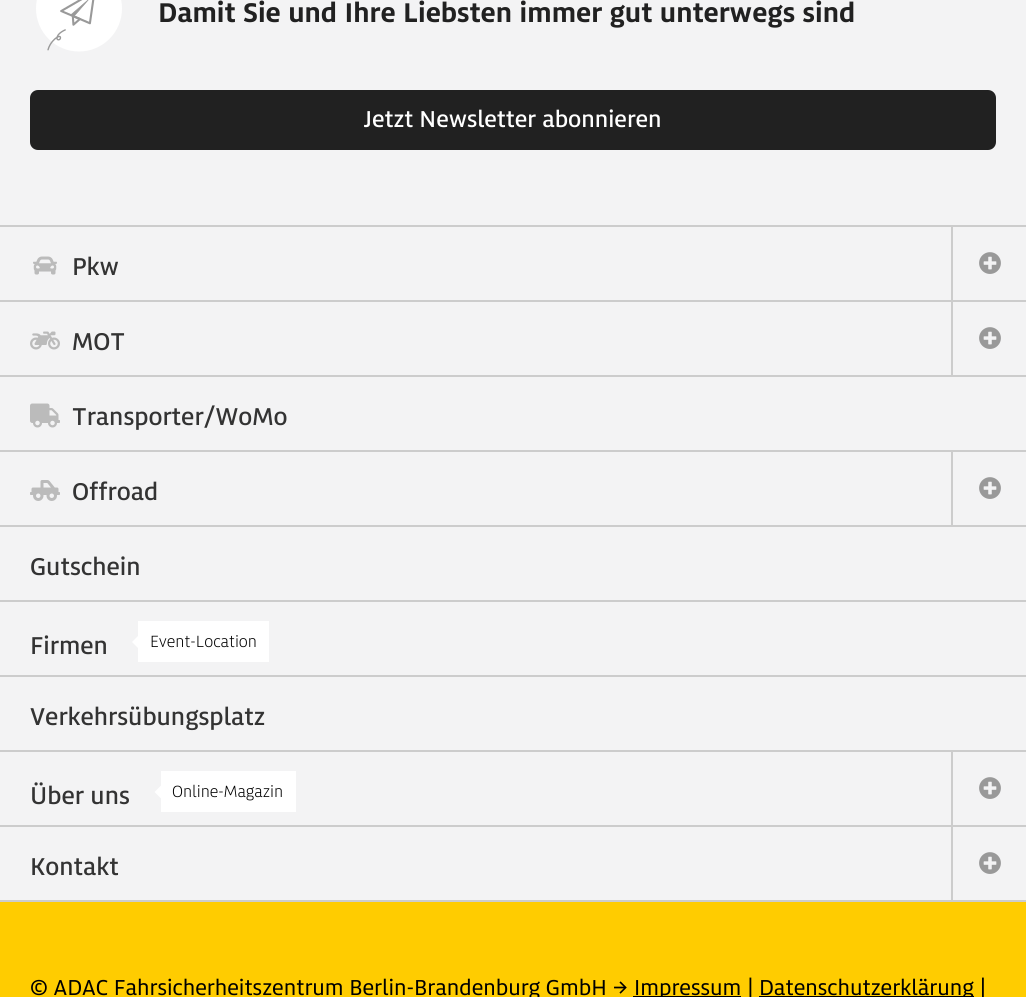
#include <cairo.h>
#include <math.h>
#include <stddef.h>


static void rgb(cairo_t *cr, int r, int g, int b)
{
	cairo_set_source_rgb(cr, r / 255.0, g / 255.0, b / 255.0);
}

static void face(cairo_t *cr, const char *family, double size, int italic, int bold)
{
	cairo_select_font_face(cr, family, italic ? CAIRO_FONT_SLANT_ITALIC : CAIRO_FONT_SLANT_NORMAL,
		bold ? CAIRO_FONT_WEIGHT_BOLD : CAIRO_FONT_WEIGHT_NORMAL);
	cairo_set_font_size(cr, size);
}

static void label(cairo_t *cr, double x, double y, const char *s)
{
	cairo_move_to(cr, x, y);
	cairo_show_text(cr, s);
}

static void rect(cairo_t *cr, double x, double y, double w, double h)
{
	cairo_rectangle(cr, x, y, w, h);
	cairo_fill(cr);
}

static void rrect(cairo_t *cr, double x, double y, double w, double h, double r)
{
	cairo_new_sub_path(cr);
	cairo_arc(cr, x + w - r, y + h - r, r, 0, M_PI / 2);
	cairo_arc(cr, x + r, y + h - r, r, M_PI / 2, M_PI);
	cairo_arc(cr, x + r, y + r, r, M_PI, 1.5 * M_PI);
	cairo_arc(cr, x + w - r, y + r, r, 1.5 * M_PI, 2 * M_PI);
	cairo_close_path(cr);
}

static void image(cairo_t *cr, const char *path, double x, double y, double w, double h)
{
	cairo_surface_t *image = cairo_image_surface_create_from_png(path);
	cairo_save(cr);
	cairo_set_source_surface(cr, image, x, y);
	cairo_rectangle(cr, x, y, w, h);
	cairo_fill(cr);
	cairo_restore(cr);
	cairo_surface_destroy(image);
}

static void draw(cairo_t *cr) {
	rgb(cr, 243, 243, 244);
	cairo_paint(cr);
	rgb(cr, 204, 204, 204);
	rect(cr, 0, 225, 1026, 2);
	image(cr, "image0.png", 36, 0, 86, 52);
	face(cr, "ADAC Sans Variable", 30, 0, 1);
	rgb(cr, 33, 33, 33);
	label(cr, 158, 22, "Damit Sie und Ihre Liebsten immer gut unterwegs sind");
	rrect(cr, 30, 90, 966, 60, 8);
	cairo_fill(cr);
	face(cr, "ADAC Sans Variable Medium", 25.5, 0, 0);
	rgb(cr, 255, 255, 255);
	label(cr, 364, 127, "Jetzt Newsletter abonnieren");
	rgb(cr, 204, 204, 204);
	rect(cr, 0, 300, 1026, 2);
	image(cr, "image1.png", 33, 256, 24, 19);
	face(cr, "ADAC Sans Variable Medium", 27, 0, 0);
	rgb(cr, 51, 51, 51);
	label(cr, 72, 275, "Pkw");
	rgb(cr, 204, 204, 204);
	rect(cr, 0, 375, 1026, 2);
	rect(cr, 951, 227, 2, 150);
	image(cr, "image2.png", 979, 252, 22, 22);
	image(cr, "image3.png", 30, 331, 30, 19);
	rgb(cr, 51, 51, 51);
	label(cr, 72, 350, "MOT");
	image(cr, "image2.png", 979, 327, 22, 22);
	rgb(cr, 204, 204, 204);
	rect(cr, 0, 450, 1026, 2);
	image(cr, "image4.png", 30, 403, 30, 25);
	rgb(cr, 51, 51, 51);
	label(cr, 72, 425, "Transporter/WoMo");
	rgb(cr, 204, 204, 204);
	rect(cr, 0, 525, 1026, 2);
	image(cr, "image5.png", 30, 480, 30, 21);
	rgb(cr, 51, 51, 51);
	label(cr, 72, 500, "Offroad");
	rgb(cr, 204, 204, 204);
	rect(cr, 951, 452, 2, 75);
	image(cr, "image2.png", 979, 477, 22, 22);
	rect(cr, 0, 600, 1026, 2);
	rgb(cr, 51, 51, 51);
	label(cr, 30, 575, "Gutschein");
	rgb(cr, 204, 204, 204);
	rect(cr, 0, 675, 1026, 2);
	rgb(cr, 51, 51, 51);
	label(cr, 30, 654, "Firmen");
	rgb(cr, 255, 255, 255);
	rect(cr, 138, 621, 131, 41);
	cairo_new_path(cr);
	cairo_move_to(cr, 139.5, 634.5);
	cairo_line_to(cr, 139.5, 649.5);
	cairo_line_to(cr, 132, 642);
	cairo_close_path(cr);
	cairo_fill(cr);
	face(cr, "ADAC Sans Variable Light", 18, 0, 0);
	rgb(cr, 0, 0, 0);
	label(cr, 150, 647, "Event-Location");
	rgb(cr, 204, 204, 204);
	rect(cr, 0, 750, 1026, 2);
	face(cr, "ADAC Sans Variable Medium", 27, 0, 0);
	rgb(cr, 51, 51, 51);
	label(cr, 30, 725, "Verkehrsübungsplatz");
	rgb(cr, 204, 204, 204);
	rect(cr, 0, 825, 1026, 2);
	rgb(cr, 51, 51, 51);
	label(cr, 30, 804, "Über uns");
	rgb(cr, 255, 255, 255);
	rect(cr, 161, 771, 135, 41);
	cairo_new_path(cr);
	cairo_move_to(cr, 162, 784.5);
	cairo_line_to(cr, 162, 799.5);
	cairo_line_to(cr, 154.5, 792);
	cairo_close_path(cr);
	cairo_fill(cr);
	face(cr, "ADAC Sans Variable Light", 18, 0, 0);
	rgb(cr, 0, 0, 0);
	label(cr, 172, 797, "Online-Magazin");
	rgb(cr, 204, 204, 204);
	rect(cr, 0, 900, 1026, 2);
	rect(cr, 951, 752, 2, 150);
	image(cr, "image2.png", 979, 777, 22, 22);
	face(cr, "ADAC Sans Variable Medium", 27, 0, 0);
	rgb(cr, 51, 51, 51);
	label(cr, 30, 875, "Kontakt");
	image(cr, "image2.png", 979, 852, 22, 22);
	rgb(cr, 255, 204, 0);
	rect(cr, 0, 902, 1026, 95);
	face(cr, "ADAC Sans Variable", 24, 0, 0);
	rgb(cr, 0, 0, 0);
	label(cr, 30, 995, "© ADAC Fahrsicherheitszentrum Berlin-Brandenburg GmbH →");
	rect(cr, 633, 996, 108, 1);
	label(cr, 634, 995, "Impressum |");
	rect(cr, 759, 996, 215, 1);
	label(cr, 759, 995, "Datenschutzerklärung |");
}

int main(void) {
	cairo_surface_t *surface = cairo_image_surface_create(CAIRO_FORMAT_RGB24, 1026, 997);
	cairo_t *cr = cairo_create(surface);
	cairo_font_options_t *options = cairo_font_options_create();
	cairo_font_options_set_hint_metrics(options, CAIRO_HINT_METRICS_OFF);
	cairo_font_options_set_hint_style(options, CAIRO_HINT_STYLE_NONE);
	cairo_set_font_options(cr, options);
	cairo_set_miter_limit(cr, 4);
	draw(cr);
	cairo_surface_write_to_png(surface, "render.png");
	cairo_font_options_destroy(options);
	cairo_destroy(cr);
	cairo_surface_destroy(surface);
	return 0;
}
